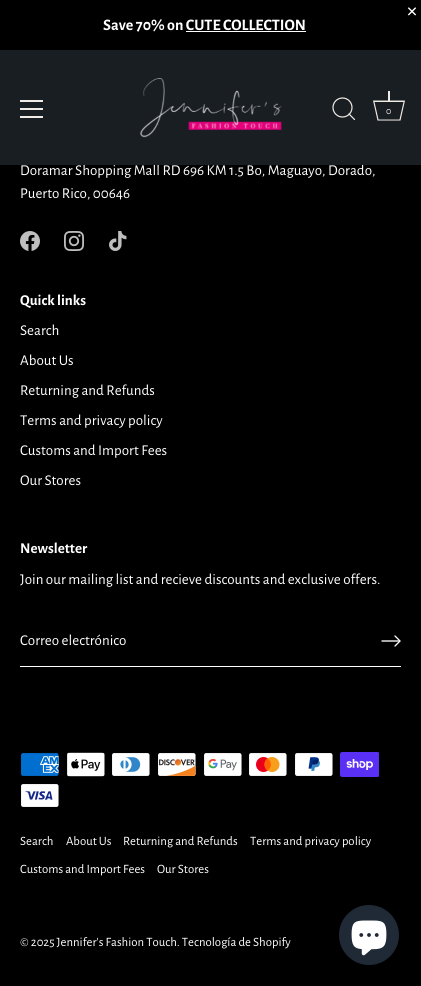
#include <cairo.h>
#include <math.h>
#include <stddef.h>


static void rgb(cairo_t *cr, int r, int g, int b)
{
	cairo_set_source_rgb(cr, r / 255.0, g / 255.0, b / 255.0);
}

static void face(cairo_t *cr, const char *family, double size, int italic, int bold)
{
	cairo_select_font_face(cr, family, italic ? CAIRO_FONT_SLANT_ITALIC : CAIRO_FONT_SLANT_NORMAL,
		bold ? CAIRO_FONT_WEIGHT_BOLD : CAIRO_FONT_WEIGHT_NORMAL);
	cairo_set_font_size(cr, size);
}

static void label(cairo_t *cr, double x, double y, const char *s)
{
	cairo_move_to(cr, x, y);
	cairo_show_text(cr, s);
}

static void rect(cairo_t *cr, double x, double y, double w, double h)
{
	cairo_rectangle(cr, x, y, w, h);
	cairo_fill(cr);
}

static void image(cairo_t *cr, const char *path, double x, double y, double w, double h)
{
	cairo_surface_t *image = cairo_image_surface_create_from_png(path);
	cairo_save(cr);
	cairo_set_source_surface(cr, image, x, y);
	cairo_rectangle(cr, x, y, w, h);
	cairo_fill(cr);
	cairo_restore(cr);
	cairo_surface_destroy(image);
}

static void draw(cairo_t *cr) {
	rgb(cr, 0, 0, 0);
	cairo_paint(cr);
	face(cr, "Alegreya Sans", 25, 0, 0);
	rgb(cr, 255, 255, 255);
	label(cr, 406, 18, "×");
	face(cr, "Alegreya Sans", 16, 0, 1);
	label(cr, 103, 30, "Save 70% on CUTE COLLECTION");
	rect(cr, 186, 31, 120, 1);
	face(cr, "Alegreya Sans", 15, 0, 0);
	label(cr, 20, 175, "Doramar Shopping Mall RD 696 KM 1.5 Bo, Maguayo, Dorado,");
	rgb(cr, 25, 30, 35);
	rect(cr, 0, 50, 421, 115);
	rgb(cr, 241, 235, 229);
	rect(cr, 20, 100, 23, 2);
	rect(cr, 20, 108, 23, 2);
	rect(cr, 20, 116, 23, 2);
	image(cr, "image0.png", 140, 78, 142, 60);
	cairo_arc(cr, 342.5, 107.5, 9.5, 0, 2 * M_PI);
	cairo_set_line_width(cr, 1.2);
	cairo_stroke(cr);
	cairo_new_path(cr);
	cairo_move_to(cr, 354.5, 119.5);
	cairo_line_to(cr, 349, 114);
	cairo_set_line_cap(cr, CAIRO_LINE_CAP_ROUND);
	cairo_set_line_join(cr, CAIRO_LINE_JOIN_ROUND);
	cairo_stroke(cr);
	cairo_new_path(cr);
	cairo_move_to(cr, 403.5, 102);
	cairo_line_to(cr, 399.5, 119.5);
	cairo_line_to(cr, 378.5, 119.5);
	cairo_line_to(cr, 374.5, 102);
	cairo_line_to(cr, 403.5, 102);
	cairo_move_to(cr, 405, 100.5);
	cairo_line_to(cr, 373, 100.5);
	cairo_line_to(cr, 377.5, 120.5);
	cairo_line_to(cr, 400.5, 120.5);
	cairo_close_path(cr);
	cairo_fill(cr);
	rect(cr, 388, 91, 2, 10);
	face(cr, "Alegreya Sans", 10, 0, 0);
	label(cr, 386, 114, "0");
	face(cr, "Alegreya Sans", 15, 0, 0);
	rgb(cr, 255, 255, 255);
	label(cr, 20, 198, "Puerto Rico, 00646");
	image(cr, "image1.png", 20, 231, 20, 20);
	image(cr, "image2.png", 64, 231, 20, 20);
	image(cr, "image3.png", 109, 231, 18, 20);
	face(cr, "Alegreya Sans", 15, 0, 1);
	label(cr, 20, 305, "Quick links");
	face(cr, "Alegreya Sans", 15, 0, 0);
	label(cr, 20, 335, "Search");
	label(cr, 20, 365, "About Us");
	label(cr, 20, 395, "Returning and Refunds");
	label(cr, 20, 425, "Terms and privacy policy");
	label(cr, 20, 455, "Customs and Import Fees");
	label(cr, 20, 485, "Our Stores");
	face(cr, "Alegreya Sans", 15, 0, 1);
	label(cr, 20, 553, "Newsletter");
	face(cr, "Alegreya Sans", 15, 0, 0);
	label(cr, 20, 584, "Join our mailing list and recieve discounts and exclusive offers.");
	rect(cr, 20, 666, 381, 1);
	label(cr, 20, 645, "Correo electrónico");
	cairo_new_path(cr);
	cairo_move_to(cr, 395, 646);
	cairo_line_to(cr, 400, 641);
	cairo_line_to(cr, 395, 636);
	cairo_set_line_width(cr, 1.3);
	cairo_set_line_join(cr, CAIRO_LINE_JOIN_MITER);
	cairo_stroke(cr);
	cairo_new_path(cr);
	cairo_move_to(cr, 399, 641);
	cairo_line_to(cr, 382, 641);
	cairo_set_line_join(cr, CAIRO_LINE_JOIN_ROUND);
	cairo_stroke(cr);
	image(cr, "image4.png", 21, 753, 38, 23);
	image(cr, "image5.png", 67, 752, 38, 25);
	image(cr, "image6.png", 112, 753, 38, 23);
	image(cr, "image7.png", 158, 753, 38, 23);
	image(cr, "image8.png", 204, 753, 38, 23);
	image(cr, "image9.png", 249, 753, 38, 23);
	image(cr, "image10.png", 295, 753, 38, 23);
	image(cr, "image11.png", 340, 752, 39, 25);
	image(cr, "image12.png", 21, 784, 38, 23);
	face(cr, "Alegreya Sans", 12.75, 0, 0);
	label(cr, 20, 845, "Search");
	label(cr, 66, 845, "About Us");
	label(cr, 123, 845, "Returning and Refunds");
	label(cr, 250, 845, "Terms and privacy policy");
	label(cr, 20, 873, "Customs and Import Fees");
	label(cr, 157, 873, "Our Stores");
	label(cr, 20, 946, "© 2025 Jennifer's Fashion Touch. Tecnología de Shopify");
	rgb(cr, 32, 42, 54);
	cairo_new_path(cr);
	cairo_arc(cr, 369, 935, 30, 0, 2 * M_PI);
	cairo_fill(cr);
	image(cr, "image13.png", 351, 920, 36, 36);
}

int main(void) {
	cairo_surface_t *surface = cairo_image_surface_create(CAIRO_FORMAT_RGB24, 421, 986);
	cairo_t *cr = cairo_create(surface);
	cairo_font_options_t *options = cairo_font_options_create();
	cairo_font_options_set_hint_metrics(options, CAIRO_HINT_METRICS_OFF);
	cairo_font_options_set_hint_style(options, CAIRO_HINT_STYLE_NONE);
	cairo_set_font_options(cr, options);
	cairo_set_miter_limit(cr, 4);
	draw(cr);
	cairo_surface_write_to_png(surface, "render.png");
	cairo_font_options_destroy(options);
	cairo_destroy(cr);
	cairo_surface_destroy(surface);
	return 0;
}
